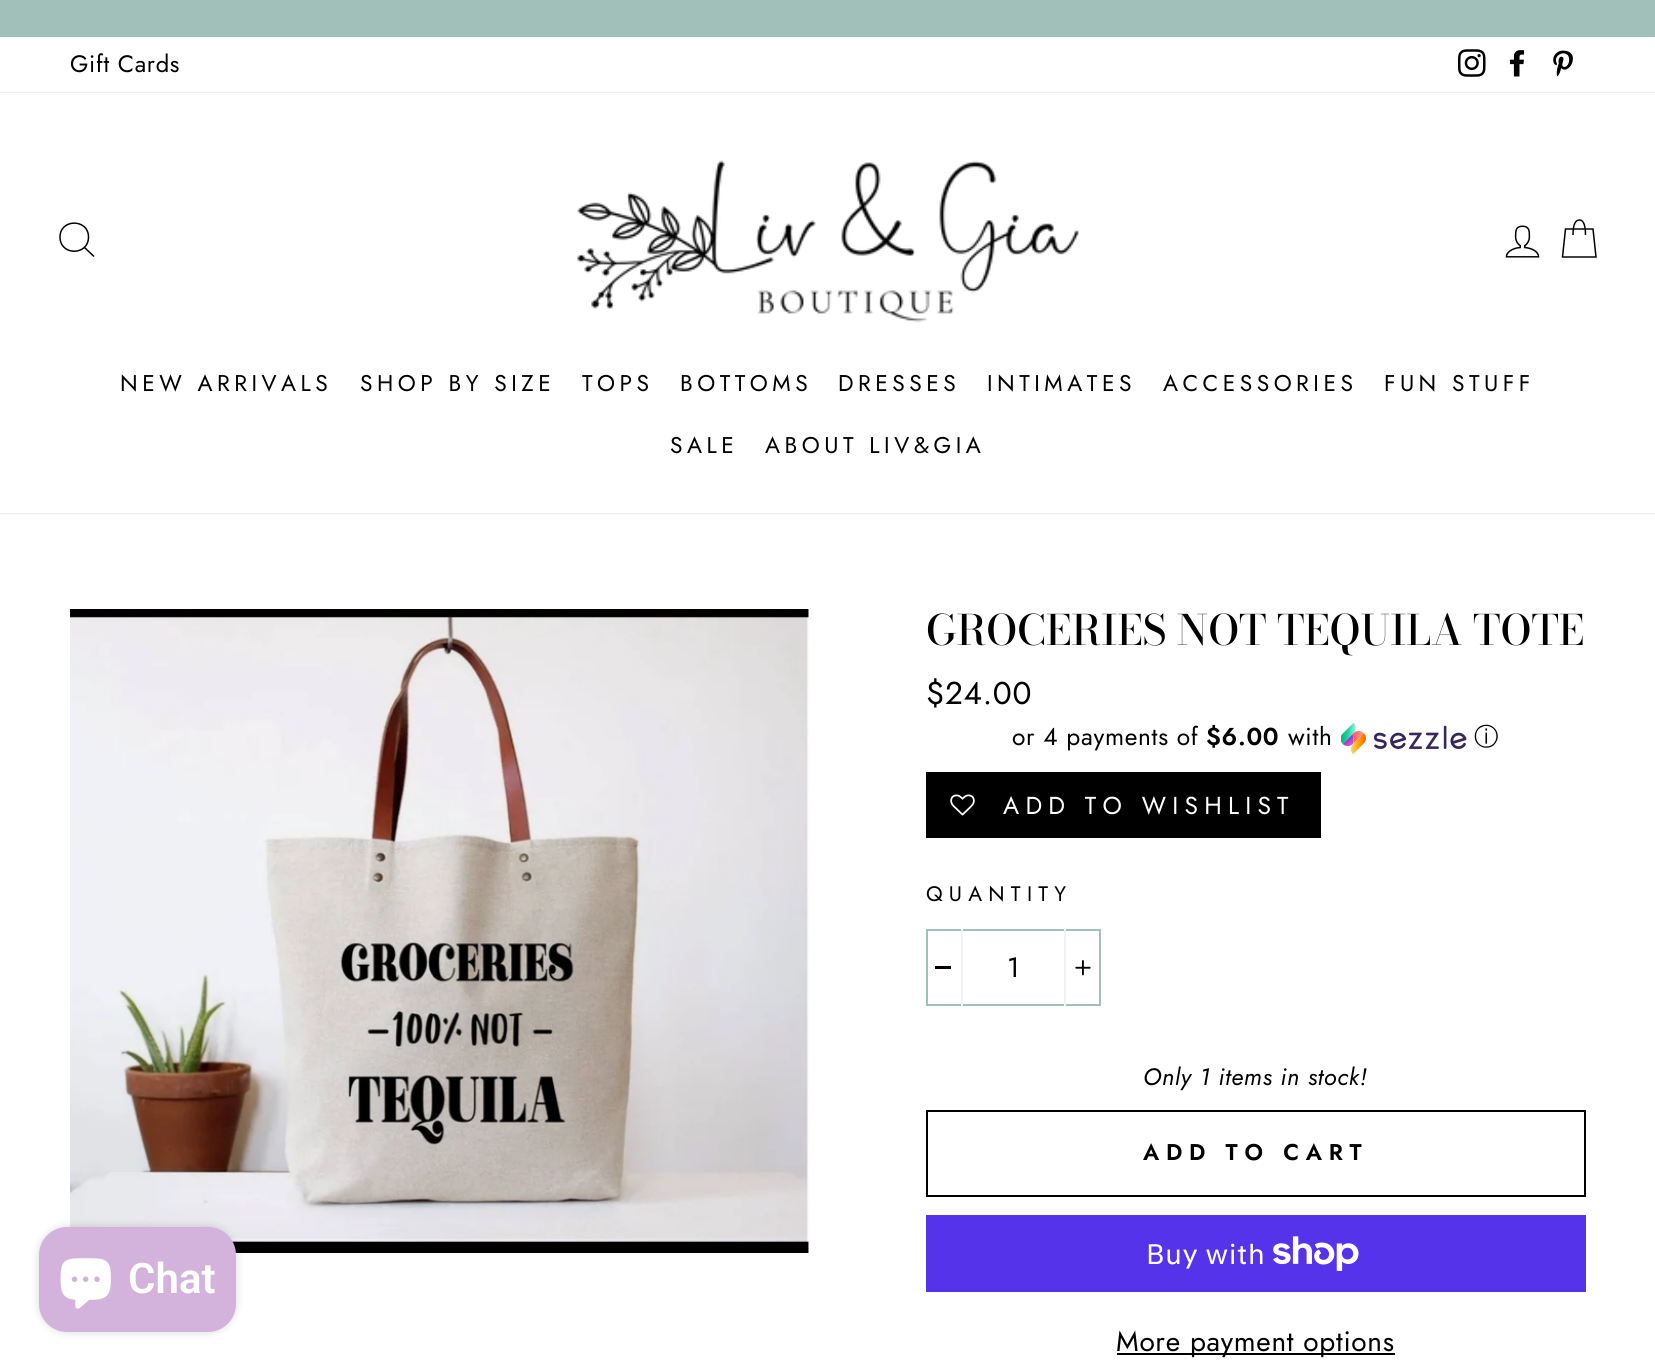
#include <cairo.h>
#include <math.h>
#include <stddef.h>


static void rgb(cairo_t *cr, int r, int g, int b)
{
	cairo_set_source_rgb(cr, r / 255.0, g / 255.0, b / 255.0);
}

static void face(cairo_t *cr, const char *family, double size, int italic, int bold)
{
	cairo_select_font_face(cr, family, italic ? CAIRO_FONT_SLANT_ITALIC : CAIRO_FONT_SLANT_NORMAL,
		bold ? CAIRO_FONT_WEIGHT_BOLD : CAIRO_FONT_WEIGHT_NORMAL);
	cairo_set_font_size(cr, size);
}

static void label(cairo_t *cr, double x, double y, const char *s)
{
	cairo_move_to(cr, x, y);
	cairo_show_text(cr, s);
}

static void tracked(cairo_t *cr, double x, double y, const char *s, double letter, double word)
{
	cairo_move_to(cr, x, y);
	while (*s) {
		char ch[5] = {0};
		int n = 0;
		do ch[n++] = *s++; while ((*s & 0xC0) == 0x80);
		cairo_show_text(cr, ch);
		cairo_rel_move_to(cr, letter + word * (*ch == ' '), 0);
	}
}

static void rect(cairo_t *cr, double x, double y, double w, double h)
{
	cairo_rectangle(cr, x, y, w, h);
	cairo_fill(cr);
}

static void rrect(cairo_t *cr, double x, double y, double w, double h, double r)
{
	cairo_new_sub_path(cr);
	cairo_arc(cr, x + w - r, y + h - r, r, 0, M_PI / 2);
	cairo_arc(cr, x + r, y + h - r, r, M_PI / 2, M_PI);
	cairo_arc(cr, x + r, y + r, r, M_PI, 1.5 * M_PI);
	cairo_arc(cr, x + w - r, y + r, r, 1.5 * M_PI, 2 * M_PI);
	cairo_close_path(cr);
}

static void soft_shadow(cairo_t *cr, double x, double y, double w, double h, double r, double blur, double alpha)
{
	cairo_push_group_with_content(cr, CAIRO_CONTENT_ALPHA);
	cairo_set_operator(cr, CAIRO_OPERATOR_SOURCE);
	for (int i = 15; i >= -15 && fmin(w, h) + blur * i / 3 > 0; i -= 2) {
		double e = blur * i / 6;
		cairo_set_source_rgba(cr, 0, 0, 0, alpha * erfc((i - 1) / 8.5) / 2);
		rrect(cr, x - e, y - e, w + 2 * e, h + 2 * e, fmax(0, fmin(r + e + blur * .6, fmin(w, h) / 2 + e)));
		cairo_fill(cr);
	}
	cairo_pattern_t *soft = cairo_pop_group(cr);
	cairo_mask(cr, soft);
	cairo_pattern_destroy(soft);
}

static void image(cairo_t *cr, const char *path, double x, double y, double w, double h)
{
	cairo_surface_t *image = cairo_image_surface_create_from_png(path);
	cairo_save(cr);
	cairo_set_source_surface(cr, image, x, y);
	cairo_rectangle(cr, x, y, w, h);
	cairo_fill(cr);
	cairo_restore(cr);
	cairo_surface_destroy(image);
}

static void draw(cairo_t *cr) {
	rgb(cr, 255, 255, 255);
	cairo_paint(cr);
	rgb(cr, 161, 192, 186);
	rect(cr, 0, 0, 1655, 37);
	face(cr, "Jost", 23.75, 0, 0);
	rgb(cr, 0, 0, 0);
	tracked(cr, 70, 72, "Gift Cards", 0.7, 0);
	image(cr, "image0.png", 1458, 49, 28, 28);
	image(cr, "image1.png", 1509, 50, 15, 27);
	image(cr, "image2.png", 1553, 50, 20, 27);
	rgb(cr, 0, 0, 0);
	soft_shadow(cr, 0, 93, 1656, 420, 0, 1, 0.2);
	rgb(cr, 255, 255, 255);
	rect(cr, 0, 93, 1655, 420);
	cairo_new_path(cr);
	cairo_move_to(cr, 88.5, 237);
	cairo_curve_to(cr, 88.5, 256, 60, 256, 60, 237);
	cairo_curve_to(cr, 60, 218.5, 88.5, 218.5, 88.5, 237);
	cairo_close_path(cr);
	cairo_move_to(cr, 94, 256.5);
	cairo_line_to(cr, 84.5, 247.5);
	rgb(cr, 0, 0, 0);
	cairo_set_line_width(cr, 1.5);
	cairo_stroke(cr);
	image(cr, "image3.png", 577, 160, 502, 163);
	image(cr, "image4.png", 1505, 225, 35, 33);
	cairo_new_path(cr);
	cairo_move_to(cr, 1573, 235);
	cairo_curve_to(cr, 1573, 223, 1576, 220, 1579.5, 220);
	cairo_curve_to(cr, 1582.5, 220, 1585.5, 223, 1585.5, 235);
	cairo_move_to(cr, 1565.5, 229);
	cairo_line_to(cr, 1593, 229);
	cairo_line_to(cr, 1596, 257);
	cairo_line_to(cr, 1562.5, 257);
	cairo_close_path(cr);
	cairo_stroke(cr);
	face(cr, "Jost", 22.75, 0, 0);
	tracked(cr, 120, 391, "NEW ARRIVALS", 4.5, 0);
	tracked(cr, 360, 391, "SHOP BY SIZE", 4.5, 0);
	tracked(cr, 582, 391, "TOPS", 4.5, 0);
	tracked(cr, 680, 391, "BOTTOMS", 4.5, 0);
	tracked(cr, 838, 391, "DRESSES", 4.5, 0);
	tracked(cr, 987, 391, "INTIMATES", 4.5, 0);
	tracked(cr, 1163, 391, "ACCESSORIES", 4.5, 0);
	tracked(cr, 1384, 391, "FUN STUFF", 4.5, 0);
	tracked(cr, 670, 453, "SALE", 4.5, 0);
	tracked(cr, 765, 453, "ABOUT LIV&GIA", 4.5, 0);
	image(cr, "image5.png", 70, 609, 739, 644);
	face(cr, "Bodoni Moda Medium", 41.6, 0, 0);
	label(cr, 926, 645, "GROCERIES NOT TEQUILA TOTE");
	face(cr, "Jost", 31.5, 0, 0);
	tracked(cr, 926, 704, "$24.00", 0.7, 0);
	face(cr, "Jost", 24.5, 0, 0);
	tracked(cr, 1012, 745, "or 4 payments of", 0.7, 0);
	face(cr, "Jost SemiBold", 24.5, 0, 0);
	tracked(cr, 1206, 745, "$6.00", 0.7, 0);
	face(cr, "Jost", 24.5, 0, 0);
	tracked(cr, 1288, 745, "with", 0.7, 0);
	image(cr, "image6.png", 1341, 723, 126, 31);
	face(cr, "WenQuanYi Zen Hei Medium", 24.5, 0, 0);
	tracked(cr, 1474, 745, "ⓘ", 0.7, 0);
	rect(cr, 926, 772, 395, 66);
	image(cr, "image7.png", 950, 794, 25, 22);
	face(cr, "Jost", 24.5, 0, 0);
	rgb(cr, 255, 255, 255);
	tracked(cr, 1003, 814, "ADD TO WISHLIST", 6.25, 0);
	face(cr, "Jost", 21, 0, 0);
	rgb(cr, 0, 0, 0);
	tracked(cr, 926, 901, "QUANTITY", 6.25, 0);
	cairo_rectangle(cr, 927, 930, 173, 75);
	rgb(cr, 161, 192, 186);
	cairo_set_line_width(cr, 2);
	cairo_stroke(cr);
	rgb(cr, 242, 242, 242);
	rect(cr, 961, 929, 2, 77);
	rgb(cr, 0, 0, 0);
	rect(cr, 935, 966, 16, 3);
	face(cr, "Jost", 28, 0, 0);
	tracked(cr, 1007, 977, "1", 0.7, 0);
	rgb(cr, 242, 242, 242);
	rect(cr, 1064, 929, 2, 77);
	image(cr, "image8.png", 1075, 960, 16, 16);
	face(cr, "Jost", 23.75, 1, 0);
	rgb(cr, 0, 0, 0);
	tracked(cr, 1143, 1085, "Only 1 items in stock!", 0.7, 0);
	cairo_rectangle(cr, 927, 1111, 658, 85);
	cairo_stroke(cr);
	face(cr, "Jost SemiBold", 22.75, 0, 0);
	tracked(cr, 1143, 1160, "ADD TO CART", 6.75, 0);
	rgb(cr, 84, 51, 235);
	rect(cr, 926, 1215, 660, 77);
	face(cr, "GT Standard", 28, 0, 0);
	rgb(cr, 255, 255, 255);
	tracked(cr, 1146, 1264, "Buy with", 0.7, 0);
	image(cr, "image9.png", 1273, 1236, 86, 35);
	rgb(cr, 0, 0, 0);
	rect(cr, 1117, 1353, 278, 2);
	face(cr, "Jost", 28, 0, 0);
	tracked(cr, 1116, 1351, "More payment options", 0.7, 0);
	rgb(cr, 0, 0, 0);
	soft_shadow(cr, 39, 1227, 197, 105, 28, 4.5, 0.15);
	rgb(cr, 211, 179, 220);
	rrect(cr, 39, 1227, 197, 105, 28);
	cairo_fill(cr);
	image(cr, "image10.png", 60, 1258, 51, 51);
	face(cr, "Roboto SemiBold", 42, 0, 0);
	rgb(cr, 255, 255, 255);
	label(cr, 128, 1293, "Chat");
}

int main(void) {
	cairo_surface_t *surface = cairo_image_surface_create(CAIRO_FORMAT_RGB24, 1655, 1368);
	cairo_t *cr = cairo_create(surface);
	cairo_font_options_t *options = cairo_font_options_create();
	cairo_font_options_set_hint_metrics(options, CAIRO_HINT_METRICS_OFF);
	cairo_font_options_set_hint_style(options, CAIRO_HINT_STYLE_NONE);
	cairo_set_font_options(cr, options);
	cairo_set_miter_limit(cr, 4);
	draw(cr);
	cairo_surface_write_to_png(surface, "render.png");
	cairo_font_options_destroy(options);
	cairo_destroy(cr);
	cairo_surface_destroy(surface);
	return 0;
}
